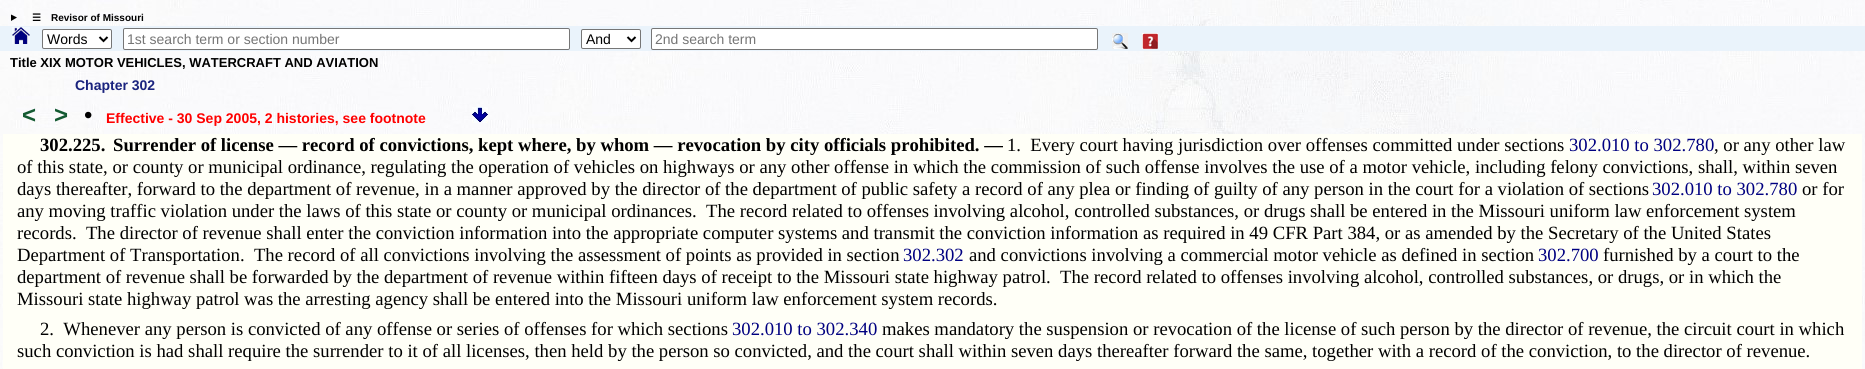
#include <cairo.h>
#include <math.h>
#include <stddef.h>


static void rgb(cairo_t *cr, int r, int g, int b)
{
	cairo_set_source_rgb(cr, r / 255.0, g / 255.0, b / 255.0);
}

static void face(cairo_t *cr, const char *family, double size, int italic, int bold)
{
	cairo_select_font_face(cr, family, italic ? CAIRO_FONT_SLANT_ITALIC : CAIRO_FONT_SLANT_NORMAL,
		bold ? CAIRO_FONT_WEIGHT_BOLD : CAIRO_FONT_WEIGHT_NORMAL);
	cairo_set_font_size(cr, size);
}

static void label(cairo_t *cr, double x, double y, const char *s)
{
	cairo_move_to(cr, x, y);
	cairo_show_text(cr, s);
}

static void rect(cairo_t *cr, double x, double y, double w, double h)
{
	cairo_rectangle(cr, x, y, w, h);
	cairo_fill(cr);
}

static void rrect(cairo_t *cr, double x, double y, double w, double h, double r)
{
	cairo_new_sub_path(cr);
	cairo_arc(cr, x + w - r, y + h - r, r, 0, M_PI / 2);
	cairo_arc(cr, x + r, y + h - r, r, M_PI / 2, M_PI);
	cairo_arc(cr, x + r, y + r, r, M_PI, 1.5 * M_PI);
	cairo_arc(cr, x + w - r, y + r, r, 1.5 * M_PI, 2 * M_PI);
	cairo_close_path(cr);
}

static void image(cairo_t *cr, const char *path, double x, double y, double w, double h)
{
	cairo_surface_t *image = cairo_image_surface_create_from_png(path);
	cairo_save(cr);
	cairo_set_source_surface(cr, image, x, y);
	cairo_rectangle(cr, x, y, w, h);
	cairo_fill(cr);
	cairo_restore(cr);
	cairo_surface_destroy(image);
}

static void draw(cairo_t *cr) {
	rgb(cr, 255, 255, 255);
	cairo_paint(cr);
	image(cr, "image0.png", 0, 0, 1865, 369);
	rgb(cr, 0, 0, 0);
	cairo_new_path(cr);
	cairo_move_to(cr, 11, 14.5);
	cairo_line_to(cr, 17, 17.5);
	cairo_line_to(cr, 11, 21);
	cairo_close_path(cr);
	cairo_fill(cr);
	face(cr, "DejaVu Sans", 10, 0, 1);
	label(cr, 32, 21, "☰");
	face(cr, "Liberation Sans", 10, 0, 1);
	label(cr, 51, 21, "Revisor of Missouri");
	rgb(cr, 234, 243, 251);
	rect(cr, 0, 26, 1865, 25);
	image(cr, "image1.png", 12, 27, 18, 17);
	rgb(cr, 255, 255, 255);
	rrect(cr, 42.5, 29.5, 69, 19, 1.5);
	cairo_fill_preserve(cr);
	rgb(cr, 118, 118, 118);
	cairo_set_line_width(cr, 1);
	cairo_stroke(cr);
	cairo_new_path(cr);
	cairo_move_to(cr, 99.5, 37);
	cairo_line_to(cr, 103.5, 41);
	cairo_line_to(cr, 107.5, 37);
	rgb(cr, 0, 0, 0);
	cairo_set_line_width(cr, 2);
	cairo_stroke(cr);
	face(cr, "Liberation Sans", 14, 0, 0);
	label(cr, 47, 44, "Words");
	rgb(cr, 255, 255, 255);
	rrect(cr, 123.5, 28.5, 446, 21, 1.5);
	cairo_fill_preserve(cr);
	rgb(cr, 118, 118, 118);
	cairo_set_line_width(cr, 1);
	cairo_stroke(cr);
	rgb(cr, 117, 117, 117);
	label(cr, 127, 44, "1st search term or section number");
	rgb(cr, 255, 255, 255);
	rrect(cr, 581.5, 29.5, 59, 19, 1.5);
	cairo_fill_preserve(cr);
	rgb(cr, 118, 118, 118);
	cairo_stroke(cr);
	cairo_new_path(cr);
	cairo_move_to(cr, 627.5, 37);
	cairo_line_to(cr, 631.5, 41);
	cairo_line_to(cr, 635.5, 37);
	rgb(cr, 0, 0, 0);
	cairo_set_line_width(cr, 2);
	cairo_stroke(cr);
	label(cr, 586, 44, "And");
	rgb(cr, 255, 255, 255);
	rrect(cr, 651.5, 28.5, 446, 21, 1.5);
	cairo_fill_preserve(cr);
	rgb(cr, 118, 118, 118);
	cairo_set_line_width(cr, 1);
	cairo_stroke(cr);
	rgb(cr, 117, 117, 117);
	label(cr, 655, 44, "2nd search term");
	image(cr, "image2.png", 1112, 33, 16, 16);
	image(cr, "image3.png", 1142, 33, 16, 16);
	face(cr, "Liberation Sans", 13, 0, 1);
	rgb(cr, 0, 0, 0);
	label(cr, 10, 67, "Title XIX MOTOR VEHICLES, WATERCRAFT AND AVIATION");
	face(cr, "Liberation Sans", 14, 0, 1);
	rgb(cr, 26, 35, 126);
	label(cr, 75, 90, "Chapter 302");
	face(cr, "Liberation Sans", 24, 0, 1);
	rgb(cr, 20, 90, 50);
	label(cr, 22, 123, "<");
	label(cr, 54, 123, ">");
	face(cr, "Liberation Sans", 24, 0, 0);
	rgb(cr, 0, 0, 0);
	label(cr, 84, 123, "•");
	face(cr, "Liberation Sans", 14, 0, 1);
	rgb(cr, 255, 0, 0);
	label(cr, 106, 123, "Effective - 30 Sep 2005, 2 histories, see footnote");
	image(cr, "image4.png", 472, 107, 16, 16);
	rgb(cr, 255, 255, 247);
	rect(cr, 3, 134, 1859, 235);
	face(cr, "Liberation Serif", 18.67, 0, 1);
	rgb(cr, 0, 0, 0);
	label(cr, 40, 151, "302.225.");
	label(cr, 113, 151, "Surrender of license — record of convictions, kept where, by whom — revocation by city officials prohibited. —");
	face(cr, "Liberation Serif", 18.67, 0, 0);
	label(cr, 1007, 151, "1.  Every court having jurisdiction over offenses committed under sections");
	rgb(cr, 0, 0, 128);
	label(cr, 1569, 151, "302.010 to 302.780");
	rgb(cr, 0, 0, 0);
	label(cr, 1714, 151, ", or any other law");
	label(cr, 17, 173, "of this state, or county or municipal ordinance, regulating the operation of vehicles on highways or any other offense in which the commission of such offense involves the use of a motor vehicle, including felony convictions, shall, within seven");
	label(cr, 17, 195, "days thereafter, forward to the department of revenue, in a manner approved by the director of the department of public safety a record of any plea or finding of guilty of any person in the court for a violation of sections");
	rgb(cr, 0, 0, 128);
	label(cr, 1652, 195, "302.010 to 302.780");
	rgb(cr, 0, 0, 0);
	label(cr, 1802, 195, "or for");
	label(cr, 17, 217, "any moving traffic violation under the laws of this state or county or municipal ordinances.  The record related to offenses involving alcohol, controlled substances, or drugs shall be entered in the Missouri uniform law enforcement system");
	label(cr, 17, 239, "records.  The director of revenue shall enter the conviction information into the appropriate computer systems and transmit the conviction information as required in 49 CFR Part 384, or as amended by the Secretary of the United States");
	label(cr, 17, 261, "Department of Transportation.  The record of all convictions involving the assessment of points as provided in section");
	rgb(cr, 0, 0, 128);
	label(cr, 903, 261, "302.302");
	rgb(cr, 0, 0, 0);
	label(cr, 969, 261, "and convictions involving a commercial motor vehicle as defined in section");
	rgb(cr, 0, 0, 128);
	label(cr, 1538, 261, "302.700");
	rgb(cr, 0, 0, 0);
	label(cr, 1603, 261, "furnished by a court to the");
	label(cr, 17, 283, "department of revenue shall be forwarded by the department of revenue within fifteen days of receipt to the Missouri state highway patrol.  The record related to offenses involving alcohol, controlled substances, or drugs, or in which the");
	label(cr, 17, 305, "Missouri state highway patrol was the arresting agency shall be entered into the Missouri uniform law enforcement system records.");
	label(cr, 40, 335, "2.  Whenever any person is convicted of any offense or series of offenses for which sections");
	rgb(cr, 0, 0, 128);
	label(cr, 732, 335, "302.010 to 302.340");
	rgb(cr, 0, 0, 0);
	label(cr, 882, 335, "makes mandatory the suspension or revocation of the license of such person by the director of revenue, the circuit court in which");
	label(cr, 17, 357, "such conviction is had shall require the surrender to it of all licenses, then held by the person so convicted, and the court shall within seven days thereafter forward the same, together with a record of the conviction, to the director of revenue.");
}

int main(void) {
	cairo_surface_t *surface = cairo_image_surface_create(CAIRO_FORMAT_RGB24, 1865, 369);
	cairo_t *cr = cairo_create(surface);
	cairo_font_options_t *options = cairo_font_options_create();
	cairo_font_options_set_hint_metrics(options, CAIRO_HINT_METRICS_OFF);
	cairo_font_options_set_hint_style(options, CAIRO_HINT_STYLE_NONE);
	cairo_set_font_options(cr, options);
	cairo_set_miter_limit(cr, 4);
	draw(cr);
	cairo_surface_write_to_png(surface, "render.png");
	cairo_font_options_destroy(options);
	cairo_destroy(cr);
	cairo_surface_destroy(surface);
	return 0;
}
